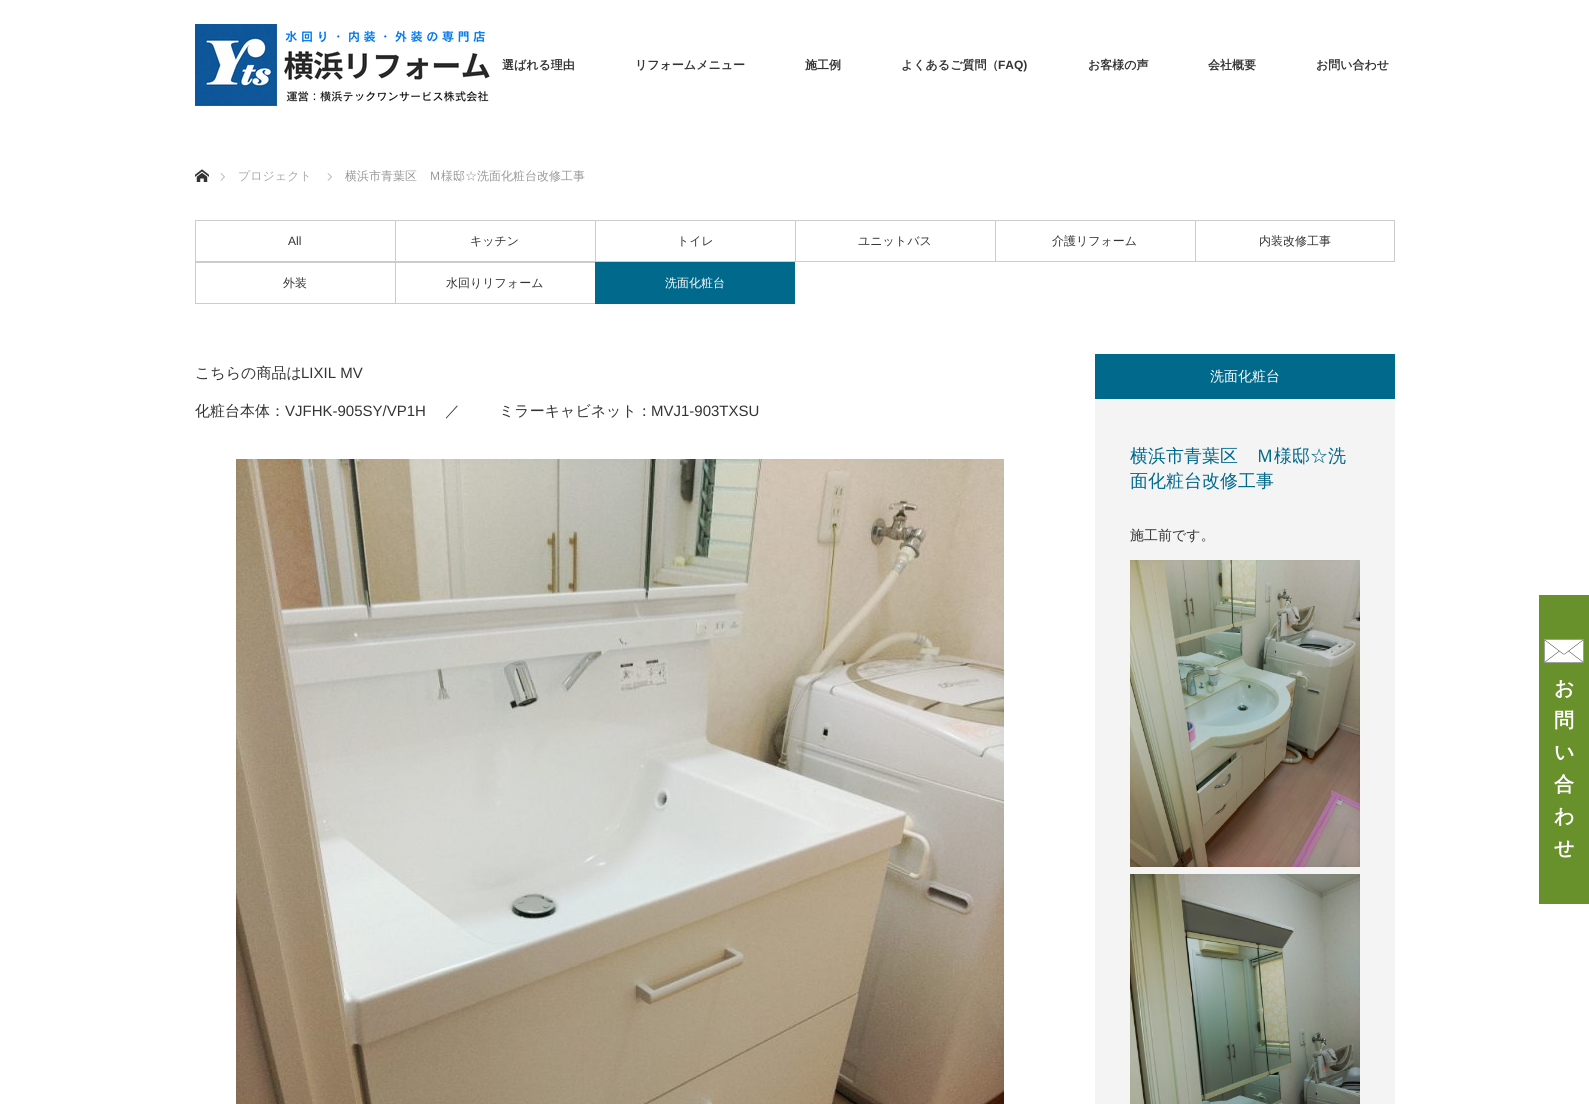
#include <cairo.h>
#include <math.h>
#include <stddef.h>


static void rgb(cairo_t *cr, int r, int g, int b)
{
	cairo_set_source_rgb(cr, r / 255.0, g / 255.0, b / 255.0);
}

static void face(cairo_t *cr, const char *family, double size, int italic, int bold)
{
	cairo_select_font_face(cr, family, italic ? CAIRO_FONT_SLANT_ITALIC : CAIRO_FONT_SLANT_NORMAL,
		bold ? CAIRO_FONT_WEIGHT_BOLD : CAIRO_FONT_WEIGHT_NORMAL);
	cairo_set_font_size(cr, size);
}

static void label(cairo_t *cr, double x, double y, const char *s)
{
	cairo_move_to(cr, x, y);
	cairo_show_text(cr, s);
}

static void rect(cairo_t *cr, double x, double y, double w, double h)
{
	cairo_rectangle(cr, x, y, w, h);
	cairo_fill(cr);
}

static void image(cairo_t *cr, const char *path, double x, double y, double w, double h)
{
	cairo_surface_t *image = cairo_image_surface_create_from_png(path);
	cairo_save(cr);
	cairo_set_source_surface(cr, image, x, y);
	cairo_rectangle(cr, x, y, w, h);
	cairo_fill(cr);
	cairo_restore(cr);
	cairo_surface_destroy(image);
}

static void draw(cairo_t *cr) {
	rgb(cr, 255, 255, 255);
	cairo_paint(cr);
	image(cr, "image0.png", 195, 24, 295, 82);
	face(cr, "WenQuanYi Zen Hei", 12, 0, 1);
	rgb(cr, 51, 51, 51);
	label(cr, 502, 69, "選ばれる理由");
	label(cr, 635, 69, "リフォームメニュー");
	label(cr, 805, 69, "施工例");
	label(cr, 901, 69, "よくあるご質問（");
	face(cr, "Liberation Sans", 12, 0, 1);
	label(cr, 998, 69, "FAQ)");
	face(cr, "WenQuanYi Zen Hei", 12, 0, 1);
	label(cr, 1088, 69, "お客様の声");
	label(cr, 1208, 69, "会社概要");
	label(cr, 1316, 69, "お問い合わせ");
	image(cr, "image1.png", 195, 169, 14, 13);
	image(cr, "image2.png", 220, 173, 5, 8);
	face(cr, "WenQuanYi Zen Hei Medium", 12, 0, 0);
	rgb(cr, 170, 170, 170);
	label(cr, 238, 180, "プロジェクト");
	image(cr, "image2.png", 327, 173, 5, 8);
	rgb(cr, 153, 153, 153);
	label(cr, 345, 180, "横浜市青葉区　Ｍ様邸☆洗面化粧台改修工事");
	rgb(cr, 204, 204, 204);
	rect(cr, 195, 220, 1000, 1);
	rect(cr, 195, 261, 1000, 1);
	rect(cr, 195, 220, 1, 42);
	face(cr, "Liberation Sans", 12, 0, 0);
	rgb(cr, 51, 51, 51);
	label(cr, 288, 245, "All");
	rgb(cr, 204, 204, 204);
	rect(cr, 395, 220, 1, 42);
	face(cr, "WenQuanYi Zen Hei Medium", 12, 0, 0);
	rgb(cr, 51, 51, 51);
	label(cr, 470, 245, "キッチン");
	rgb(cr, 204, 204, 204);
	rect(cr, 595, 220, 1, 42);
	rgb(cr, 51, 51, 51);
	label(cr, 677, 245, "トイレ");
	rgb(cr, 204, 204, 204);
	rect(cr, 795, 220, 1, 42);
	rgb(cr, 51, 51, 51);
	label(cr, 858, 245, "ユニットバス");
	rgb(cr, 204, 204, 204);
	rect(cr, 995, 220, 1, 42);
	rgb(cr, 51, 51, 51);
	label(cr, 1052, 245, "介護リフォーム");
	cairo_rectangle(cr, 1195.5, 220.5, 199, 41);
	rgb(cr, 204, 204, 204);
	cairo_set_line_width(cr, 1);
	cairo_stroke(cr);
	rgb(cr, 51, 51, 51);
	label(cr, 1259, 245, "内装改修工事");
	rgb(cr, 204, 204, 204);
	rect(cr, 195, 262, 400, 1);
	rect(cr, 195, 303, 400, 1);
	rect(cr, 195, 262, 1, 42);
	rgb(cr, 51, 51, 51);
	label(cr, 283, 287, "外装");
	rgb(cr, 204, 204, 204);
	rect(cr, 395, 262, 1, 42);
	rgb(cr, 51, 51, 51);
	label(cr, 446, 287, "水回りリフォーム");
	cairo_rectangle(cr, 595.5, 262.5, 199, 41);
	rgb(cr, 0, 105, 140);
	cairo_stroke(cr);
	rect(cr, 596, 263, 198, 40);
	rgb(cr, 255, 255, 255);
	label(cr, 665, 287, "洗面化粧台");
	face(cr, "WenQuanYi Zen Hei Medium", 15, 0, 0);
	rgb(cr, 51, 51, 51);
	label(cr, 195, 378, "こちらの商品は");
	face(cr, "Liberation Sans", 15, 0, 0);
	label(cr, 301, 378, "LIXIL MV");
	face(cr, "WenQuanYi Zen Hei Medium", 15, 0, 0);
	label(cr, 195, 416, "化粧台本体：");
	face(cr, "Liberation Sans", 15, 0, 0);
	label(cr, 285, 416, "VJFHK-905SY/VP1H");
	face(cr, "WenQuanYi Zen Hei Medium", 15, 0, 0);
	label(cr, 445, 416, "／ 　　 ミラーキャビネット：");
	face(cr, "Liberation Sans", 15, 0, 0);
	label(cr, 651, 416, "MVJ1-903TXSU");
	image(cr, "image3.png", 236, 459, 768, 645);
	rgb(cr, 244, 244, 244);
	rect(cr, 1095, 399, 300, 705);
	rgb(cr, 0, 105, 140);
	rect(cr, 1095, 354, 300, 45);
	face(cr, "WenQuanYi Zen Hei Medium", 14, 0, 0);
	rgb(cr, 255, 255, 255);
	label(cr, 1210, 381, "洗面化粧台");
	face(cr, "WenQuanYi Zen Hei Medium", 18, 0, 0);
	rgb(cr, 0, 105, 140);
	label(cr, 1130, 462, "横浜市青葉区　Ｍ様邸☆洗");
	label(cr, 1130, 487, "面化粧台改修工事");
	face(cr, "WenQuanYi Zen Hei Medium", 14, 0, 0);
	rgb(cr, 51, 51, 51);
	label(cr, 1130, 540, "施工前です。");
	image(cr, "image4.png", 1130, 560, 230, 307);
	image(cr, "image5.png", 1130, 874, 230, 230);
	rgb(cr, 104, 144, 43);
	rect(cr, 1539, 595, 50, 309);
	image(cr, "image6.png", 1544, 639, 40, 24);
	face(cr, "WenQuanYi Zen Hei", 20, 0, 1);
	rgb(cr, 255, 255, 255);
	label(cr, 1554, 695, "お");
	label(cr, 1554, 727, "問");
	label(cr, 1554, 759, "い");
	label(cr, 1554, 791, "合");
	label(cr, 1554, 823, "わ");
	label(cr, 1554, 855, "せ");
}

int main(void) {
	cairo_surface_t *surface = cairo_image_surface_create(CAIRO_FORMAT_RGB24, 1589, 1104);
	cairo_t *cr = cairo_create(surface);
	cairo_font_options_t *options = cairo_font_options_create();
	cairo_font_options_set_hint_metrics(options, CAIRO_HINT_METRICS_OFF);
	cairo_font_options_set_hint_style(options, CAIRO_HINT_STYLE_NONE);
	cairo_set_font_options(cr, options);
	cairo_set_miter_limit(cr, 4);
	draw(cr);
	cairo_surface_write_to_png(surface, "render.png");
	cairo_font_options_destroy(options);
	cairo_destroy(cr);
	cairo_surface_destroy(surface);
	return 0;
}
